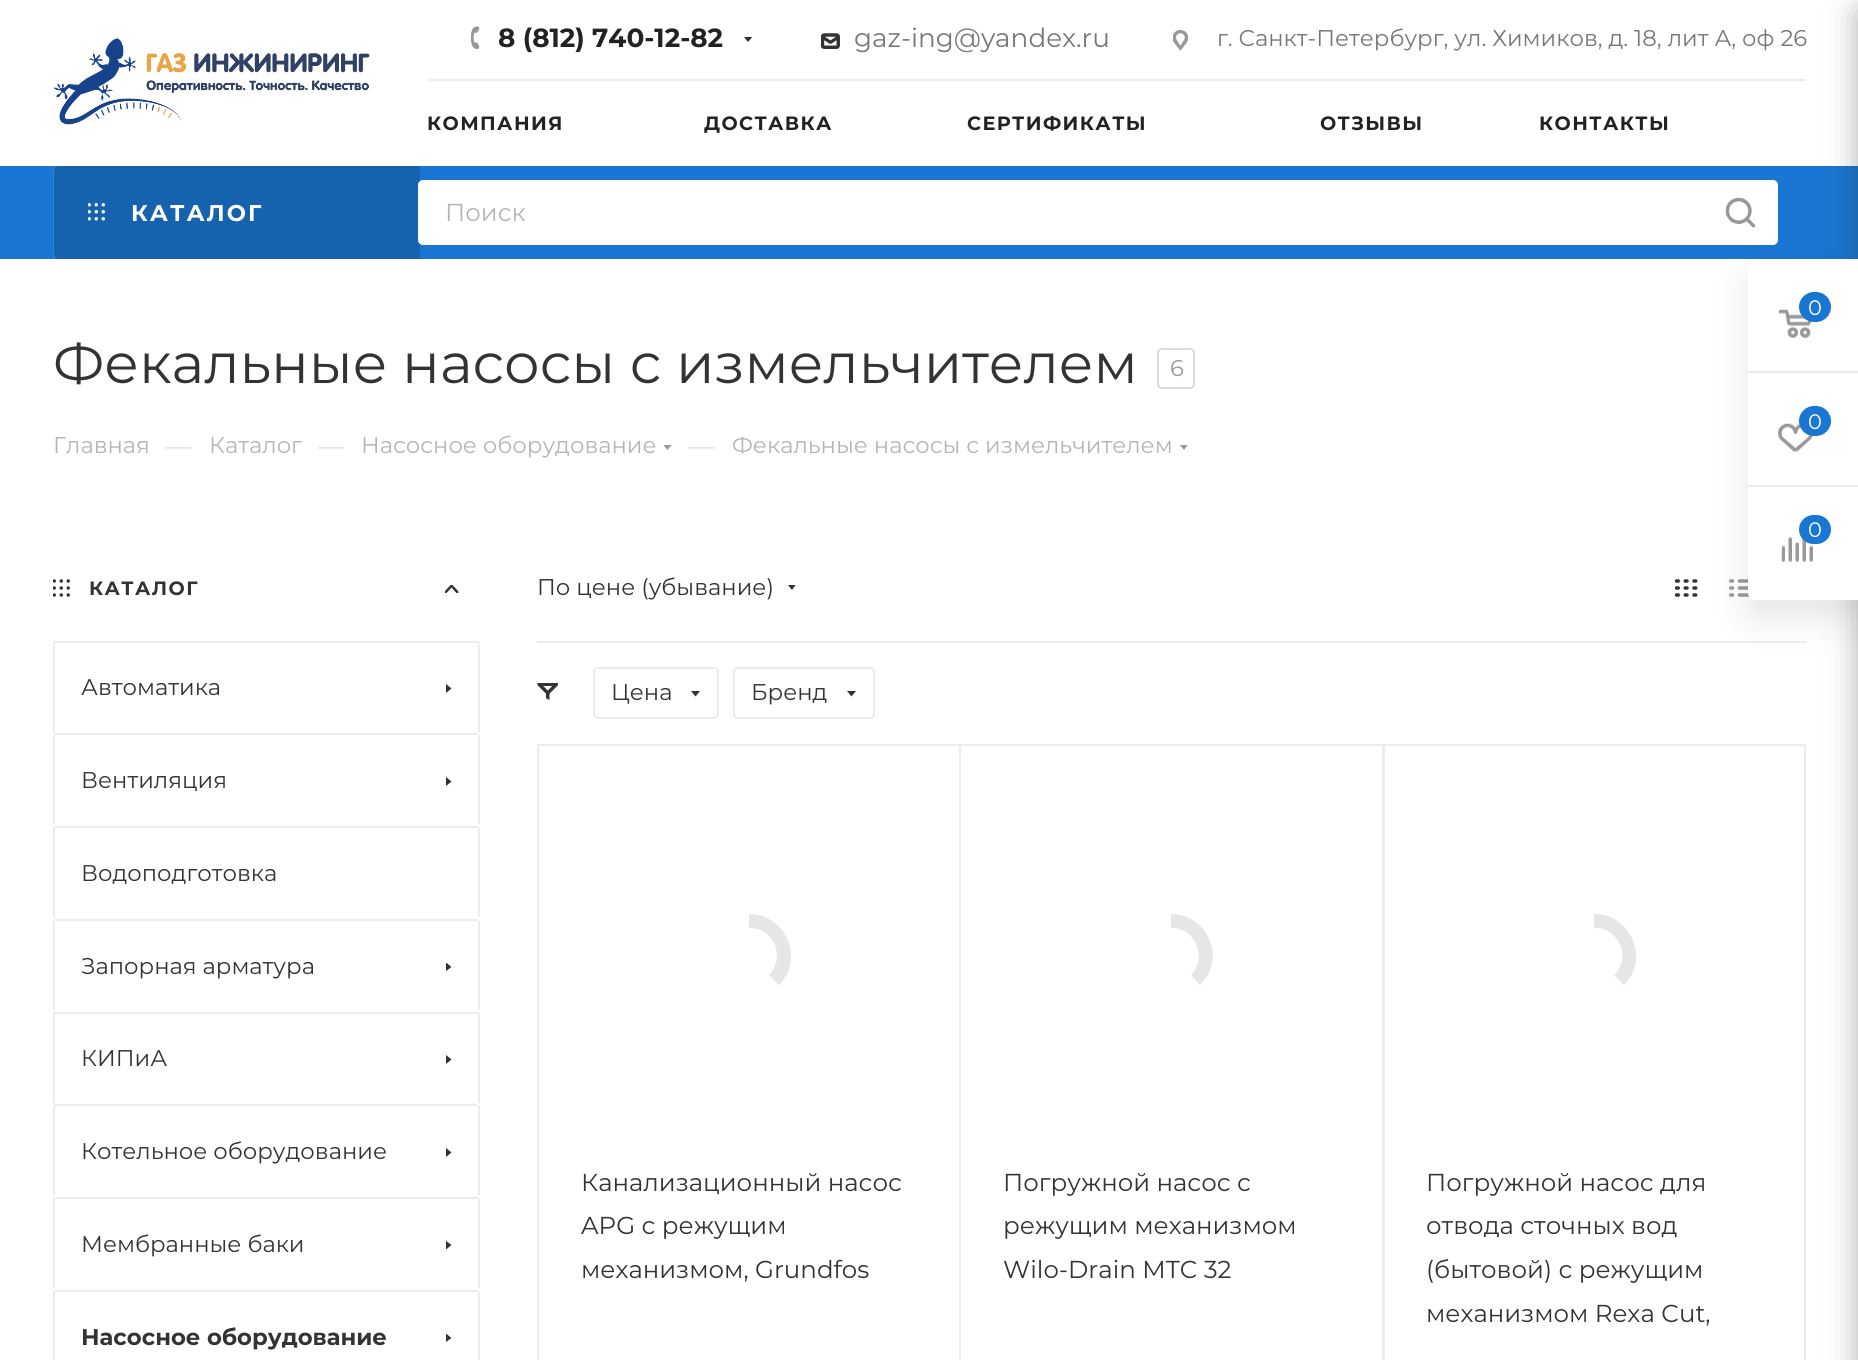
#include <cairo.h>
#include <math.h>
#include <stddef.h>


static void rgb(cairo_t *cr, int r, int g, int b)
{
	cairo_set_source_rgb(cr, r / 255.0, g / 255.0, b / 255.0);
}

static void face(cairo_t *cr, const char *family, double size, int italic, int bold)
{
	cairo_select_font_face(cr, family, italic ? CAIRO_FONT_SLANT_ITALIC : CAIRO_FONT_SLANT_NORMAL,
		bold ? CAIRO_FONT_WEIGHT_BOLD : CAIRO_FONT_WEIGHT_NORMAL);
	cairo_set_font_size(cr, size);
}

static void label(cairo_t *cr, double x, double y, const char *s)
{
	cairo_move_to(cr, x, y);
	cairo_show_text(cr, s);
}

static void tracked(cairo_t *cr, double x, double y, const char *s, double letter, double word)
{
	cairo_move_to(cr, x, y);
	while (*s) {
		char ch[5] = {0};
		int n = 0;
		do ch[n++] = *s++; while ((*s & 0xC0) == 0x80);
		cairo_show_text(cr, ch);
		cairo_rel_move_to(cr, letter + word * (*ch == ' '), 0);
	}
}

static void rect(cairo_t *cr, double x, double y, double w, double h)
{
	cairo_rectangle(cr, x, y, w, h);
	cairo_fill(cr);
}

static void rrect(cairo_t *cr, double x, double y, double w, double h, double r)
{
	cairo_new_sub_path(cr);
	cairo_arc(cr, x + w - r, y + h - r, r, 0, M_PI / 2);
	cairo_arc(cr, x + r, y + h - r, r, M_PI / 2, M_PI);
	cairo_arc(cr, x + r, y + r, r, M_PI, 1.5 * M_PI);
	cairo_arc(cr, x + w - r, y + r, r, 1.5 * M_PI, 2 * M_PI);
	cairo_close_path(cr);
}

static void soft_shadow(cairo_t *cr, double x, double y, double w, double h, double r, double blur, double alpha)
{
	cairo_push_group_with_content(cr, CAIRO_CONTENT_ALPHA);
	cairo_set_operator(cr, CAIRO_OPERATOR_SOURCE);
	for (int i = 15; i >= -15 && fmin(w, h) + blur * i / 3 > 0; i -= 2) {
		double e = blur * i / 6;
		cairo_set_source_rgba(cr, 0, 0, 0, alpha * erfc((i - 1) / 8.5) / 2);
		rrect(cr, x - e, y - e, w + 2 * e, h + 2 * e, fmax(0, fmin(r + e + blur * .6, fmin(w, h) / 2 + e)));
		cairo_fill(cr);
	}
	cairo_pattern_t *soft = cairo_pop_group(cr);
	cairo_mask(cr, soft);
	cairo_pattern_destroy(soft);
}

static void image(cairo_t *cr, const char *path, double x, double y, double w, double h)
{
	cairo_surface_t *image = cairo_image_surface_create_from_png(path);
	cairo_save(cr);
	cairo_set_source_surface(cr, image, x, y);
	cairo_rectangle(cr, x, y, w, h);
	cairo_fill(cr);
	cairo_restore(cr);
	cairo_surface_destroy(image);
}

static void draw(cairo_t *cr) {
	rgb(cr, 255, 255, 255);
	cairo_paint(cr);
	image(cr, "image0.png", 53, 38, 317, 87);
	image(cr, "image1.png", 470, 26, 10, 23);
	face(cr, "Montserrat", 26.25, 0, 1);
	rgb(cr, 34, 34, 34);
	label(cr, 498, 47, "8 (812) 740-12-82");
	image(cr, "image2.png", 744, 36, 9, 6);
	image(cr, "image3.png", 821, 33, 19, 16);
	face(cr, "Montserrat", 26.25, 0, 0);
	rgb(cr, 119, 119, 119);
	label(cr, 854, 47, "gaz-ing@yandex.ru");
	image(cr, "image4.png", 1173, 30, 15, 21);
	face(cr, "Montserrat", 22.75, 0, 0);
	label(cr, 1217, 46, "г. Санкт-Петербург, ул. Химиков, д. 18, лит А, оф 26");
	rgb(cr, 237, 237, 237);
	rect(cr, 427, 79, 1379, 2);
	face(cr, "Montserrat", 19.25, 0, 1);
	rgb(cr, 34, 34, 34);
	tracked(cr, 427, 130, "КОМПАНИЯ", 1.4, 0);
	tracked(cr, 704, 130, "ДОСТАВКА", 1.4, 0);
	tracked(cr, 967, 130, "СЕРТИФИКАТЫ", 1.4, 0);
	tracked(cr, 1320, 130, "ОТЗЫВЫ", 1.4, 0);
	tracked(cr, 1539, 130, "КОНТАКТЫ", 1.4, 0);
	rgb(cr, 25, 118, 210);
	rect(cr, 0, 166, 1858, 93);
	rgb(cr, 48, 132, 215);
	rect(cr, 53, 166, 2, 93);
	rgb(cr, 21, 98, 174);
	cairo_new_path(cr);
	cairo_move_to(cr, 59, 166);
	cairo_line_to(cr, 420, 166);
	cairo_line_to(cr, 420, 259);
	cairo_line_to(cr, 59, 259);
	cairo_curve_to(cr, 56, 259, 54, 257, 54, 254);
	cairo_line_to(cr, 54, 171);
	cairo_curve_to(cr, 54, 168, 56, 166, 59, 166);
	cairo_close_path(cr);
	cairo_fill(cr);
	image(cr, "image5.png", 88, 203, 17, 18);
	face(cr, "Montserrat", 22.75, 0, 1);
	rgb(cr, 255, 255, 255);
	tracked(cr, 131, 221, "КАТАЛОГ", 2, 0);
	rrect(cr, 419, 181, 1358, 63, 4);
	cairo_fill_preserve(cr);
	cairo_stroke(cr);
	face(cr, "Montserrat", 24.5, 0, 0);
	rgb(cr, 182, 181, 181);
	label(cr, 445, 221, "Поиск");
	image(cr, "image6.png", 1725, 197, 31, 31);
	face(cr, "Montserrat", 56, 0, 0);
	rgb(cr, 51, 51, 51);
	label(cr, 53, 383, "Фекальные насосы с измельчителем");
	rrect(cr, 1158, 349, 36, 39, 4);
	rgb(cr, 219, 219, 219);
	cairo_stroke(cr);
	face(cr, "Montserrat", 22.75, 0, 0);
	rgb(cr, 153, 153, 153);
	label(cr, 1170, 376, "6");
	rgb(cr, 182, 181, 181);
	label(cr, 53, 453, "Главная");
	face(cr, "Montserrat", 26.25, 0, 0);
	rgb(cr, 221, 221, 221);
	label(cr, 165, 455, "—");
	face(cr, "Montserrat", 22.75, 0, 0);
	rgb(cr, 182, 181, 181);
	label(cr, 209, 453, "Каталог");
	face(cr, "Montserrat", 26.25, 0, 0);
	rgb(cr, 221, 221, 221);
	label(cr, 318, 455, "—");
	face(cr, "Montserrat", 22.75, 0, 0);
	rgb(cr, 182, 181, 181);
	label(cr, 361, 453, "Насосное оборудование");
	cairo_save(cr);
	cairo_rectangle(cr, 663, 445, 9, 5);
	cairo_clip(cr);
	rgb(cr, 153, 153, 153);
	cairo_set_fill_rule(cr, CAIRO_FILL_RULE_EVEN_ODD);
	cairo_new_path(cr);
	cairo_move_to(cr, 663, 444.5);
	cairo_line_to(cr, 672, 444.5);
	cairo_line_to(cr, 667.5, 450);
	cairo_close_path(cr);
	cairo_fill(cr);
	cairo_restore(cr);
	face(cr, "Montserrat", 26.25, 0, 0);
	rgb(cr, 221, 221, 221);
	label(cr, 688, 455, "—");
	face(cr, "Montserrat", 22.75, 0, 0);
	rgb(cr, 182, 181, 181);
	label(cr, 732, 453, "Фекальные насосы с измельчителем");
	cairo_save(cr);
	cairo_rectangle(cr, 1180, 445, 8, 5);
	cairo_clip(cr);
	rgb(cr, 153, 153, 153);
	cairo_set_fill_rule(cr, CAIRO_FILL_RULE_EVEN_ODD);
	cairo_new_path(cr);
	cairo_move_to(cr, 1179.5, 444.5);
	cairo_line_to(cr, 1188, 444.5);
	cairo_line_to(cr, 1184, 450);
	cairo_close_path(cr);
	cairo_fill(cr);
	cairo_restore(cr);
	image(cr, "image7.png", 53, 579, 17, 18);
	face(cr, "Montserrat", 19.25, 0, 1);
	rgb(cr, 51, 51, 51);
	tracked(cr, 89, 595, "КАТАЛОГ", 1.4, 0);
	image(cr, "image8.png", 445, 585, 14, 8);
	rgb(cr, 236, 236, 236);
	rect(cr, 54, 641, 424, 2);
	rect(cr, 478, 642, 2, 90);
	rect(cr, 53, 642, 2, 90);
	face(cr, "Montserrat", 22.75, 0, 0);
	rgb(cr, 51, 51, 51);
	label(cr, 81, 695, "Автоматика");
	cairo_set_fill_rule(cr, CAIRO_FILL_RULE_EVEN_ODD);
	cairo_new_path(cr);
	cairo_move_to(cr, 446, 693);
	cairo_line_to(cr, 446, 684);
	cairo_line_to(cr, 451.5, 688.5);
	cairo_close_path(cr);
	cairo_fill(cr);
	rgb(cr, 236, 236, 236);
	rect(cr, 54, 733, 424, 2);
	rect(cr, 478, 735, 2, 89);
	rect(cr, 53, 735, 2, 89);
	rgb(cr, 51, 51, 51);
	label(cr, 81, 788, "Вентиляция");
	cairo_new_path(cr);
	cairo_move_to(cr, 446, 786);
	cairo_line_to(cr, 446, 777);
	cairo_line_to(cr, 451.5, 781.5);
	cairo_close_path(cr);
	cairo_fill(cr);
	rgb(cr, 236, 236, 236);
	rect(cr, 54, 826, 424, 2);
	rect(cr, 478, 828, 2, 89);
	rect(cr, 53, 828, 2, 89);
	rgb(cr, 51, 51, 51);
	label(cr, 81, 881, "Водоподготовка");
	rgb(cr, 236, 236, 236);
	rect(cr, 54, 919, 424, 2);
	rect(cr, 478, 921, 2, 89);
	rect(cr, 53, 921, 2, 89);
	rgb(cr, 51, 51, 51);
	label(cr, 81, 974, "Запорная арматура");
	cairo_save(cr);
	cairo_set_fill_rule(cr, CAIRO_FILL_RULE_WINDING);
	cairo_rectangle(cr, 446, 963, 5, 8);
	cairo_clip(cr);
	cairo_set_fill_rule(cr, CAIRO_FILL_RULE_EVEN_ODD);
	cairo_new_path(cr);
	cairo_move_to(cr, 446, 971);
	cairo_line_to(cr, 446, 962.5);
	cairo_line_to(cr, 451.5, 967);
	cairo_close_path(cr);
	cairo_fill(cr);
	cairo_restore(cr);
	rgb(cr, 236, 236, 236);
	rect(cr, 54, 1012, 424, 2);
	rect(cr, 478, 1013, 2, 90);
	rect(cr, 53, 1013, 2, 90);
	rgb(cr, 51, 51, 51);
	label(cr, 81, 1066, "КИПиА");
	cairo_new_path(cr);
	cairo_move_to(cr, 446, 1064);
	cairo_line_to(cr, 446, 1055);
	cairo_line_to(cr, 451.5, 1059.5);
	cairo_close_path(cr);
	cairo_fill(cr);
	rgb(cr, 236, 236, 236);
	rect(cr, 54, 1104, 424, 2);
	rect(cr, 478, 1106, 2, 89);
	rect(cr, 53, 1106, 2, 89);
	rgb(cr, 51, 51, 51);
	label(cr, 81, 1159, "Котельное оборудование");
	cairo_new_path(cr);
	cairo_move_to(cr, 446, 1157);
	cairo_line_to(cr, 446, 1148);
	cairo_line_to(cr, 451.5, 1152.5);
	cairo_close_path(cr);
	cairo_fill(cr);
	rgb(cr, 236, 236, 236);
	rect(cr, 54, 1197, 424, 2);
	rect(cr, 478, 1199, 2, 89);
	rect(cr, 53, 1199, 2, 89);
	rgb(cr, 51, 51, 51);
	label(cr, 81, 1252, "Мембранные баки");
	cairo_new_path(cr);
	cairo_move_to(cr, 446, 1249.5);
	cairo_line_to(cr, 446, 1241);
	cairo_line_to(cr, 451.5, 1245);
	cairo_close_path(cr);
	cairo_fill(cr);
	rgb(cr, 236, 236, 236);
	rect(cr, 54, 1290, 424, 2);
	rect(cr, 478, 1292, 2, 68);
	rect(cr, 53, 1292, 2, 68);
	face(cr, "Montserrat", 22.75, 0, 1);
	rgb(cr, 51, 51, 51);
	label(cr, 81, 1345, "Насосное оборудование");
	cairo_save(cr);
	cairo_set_fill_rule(cr, CAIRO_FILL_RULE_WINDING);
	cairo_rectangle(cr, 446, 1334, 5, 8);
	cairo_clip(cr);
	cairo_set_fill_rule(cr, CAIRO_FILL_RULE_EVEN_ODD);
	cairo_new_path(cr);
	cairo_move_to(cr, 446, 1342);
	cairo_line_to(cr, 446, 1333.5);
	cairo_line_to(cr, 451.5, 1338);
	cairo_close_path(cr);
	cairo_fill(cr);
	cairo_restore(cr);
	rgb(cr, 236, 236, 236);
	rect(cr, 537, 641, 1269, 2);
	face(cr, "Montserrat", 22.75, 0, 0);
	rgb(cr, 51, 51, 51);
	label(cr, 537, 595, "По цене (убывание)");
	cairo_save(cr);
	cairo_set_fill_rule(cr, CAIRO_FILL_RULE_WINDING);
	cairo_rectangle(cr, 788, 585, 8, 5);
	cairo_clip(cr);
	cairo_set_fill_rule(cr, CAIRO_FILL_RULE_EVEN_ODD);
	cairo_new_path(cr);
	cairo_move_to(cr, 787.5, 584.5);
	cairo_line_to(cr, 796, 584.5);
	cairo_line_to(cr, 792, 590);
	cairo_close_path(cr);
	cairo_fill(cr);
	cairo_restore(cr);
	image(cr, "image9.png", 1675, 579, 23, 18);
	image(cr, "image10.png", 1729, 579, 21, 18);
	image(cr, "image11.png", 537, 683, 21, 17);
	rrect(cr, 594, 668, 124, 50, 4);
	rgb(cr, 236, 236, 236);
	cairo_stroke(cr);
	rgb(cr, 51, 51, 51);
	label(cr, 611, 700, "Цена");
	cairo_new_path(cr);
	cairo_move_to(cr, 691, 691);
	cairo_line_to(cr, 700, 691);
	cairo_line_to(cr, 695.5, 696.5);
	cairo_close_path(cr);
	cairo_fill(cr);
	rrect(cr, 734, 668, 140, 50, 4);
	rgb(cr, 236, 236, 236);
	cairo_stroke(cr);
	rgb(cr, 51, 51, 51);
	label(cr, 751, 700, "Бренд");
	cairo_new_path(cr);
	cairo_move_to(cr, 847, 691);
	cairo_line_to(cr, 856, 691);
	cairo_line_to(cr, 851.5, 696.5);
	cairo_close_path(cr);
	cairo_fill(cr);
	cairo_rectangle(cr, 538, 745, 422, 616);
	rgb(cr, 236, 236, 236);
	cairo_stroke(cr);
	rgb(cr, 230, 230, 230);
	cairo_set_fill_rule(cr, CAIRO_FILL_RULE_WINDING);
	cairo_new_path(cr);
	cairo_move_to(cr, 749, 914);
	cairo_curve_to(cr, 786, 914, 805, 959, 779, 985);
	cairo_line_to(cr, 769, 975);
	cairo_curve_to(cr, 786, 958, 774, 927, 749, 928);
	cairo_close_path(cr);
	cairo_fill(cr);
	face(cr, "Montserrat", 24.5, 0, 0);
	rgb(cr, 51, 51, 51);
	label(cr, 581, 1191, "Канализационный насос");
	label(cr, 581, 1234, "APG с режущим");
	label(cr, 581, 1278, "механизмом, Grundfos");
	cairo_rectangle(cr, 960, 745, 423, 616);
	rgb(cr, 236, 236, 236);
	cairo_stroke(cr);
	rgb(cr, 230, 230, 230);
	cairo_new_path(cr);
	cairo_move_to(cr, 1171, 914);
	cairo_curve_to(cr, 1208, 914, 1227, 959, 1200, 985);
	cairo_line_to(cr, 1191, 975);
	cairo_curve_to(cr, 1208, 958, 1195, 927, 1171, 928);
	cairo_close_path(cr);
	cairo_fill(cr);
	rgb(cr, 51, 51, 51);
	label(cr, 1003, 1191, "Погружной насос с");
	label(cr, 1003, 1234, "режущим механизмом");
	label(cr, 1003, 1278, "Wilo-Drain MTC 32");
	cairo_rectangle(cr, 1384, 745, 421, 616);
	rgb(cr, 236, 236, 236);
	cairo_stroke(cr);
	rgb(cr, 230, 230, 230);
	cairo_new_path(cr);
	cairo_move_to(cr, 1594, 914);
	cairo_curve_to(cr, 1631, 914, 1650, 959, 1624, 985);
	cairo_line_to(cr, 1614, 975);
	cairo_curve_to(cr, 1632, 958, 1619, 927, 1594, 928);
	cairo_close_path(cr);
	cairo_fill(cr);
	rgb(cr, 51, 51, 51);
	label(cr, 1426, 1191, "Погружной насос для");
	label(cr, 1426, 1234, "отвода сточных вод");
	label(cr, 1426, 1278, "(бытовой) с режущим");
	label(cr, 1426, 1322, "механизмом Rexa Cut,");
	rgb(cr, 44, 44, 44);
	soft_shadow(cr, 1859, 11, 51, 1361, 4, 16, 0.4);
	rgb(cr, 0, 0, 0);
	soft_shadow(cr, 1748, 277, 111, 341, 7, 17.5, 0.1);
	rgb(cr, 255, 255, 255);
	cairo_new_path(cr);
	cairo_move_to(cr, 1755, 259);
	cairo_line_to(cr, 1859, 259);
	cairo_line_to(cr, 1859, 600);
	cairo_line_to(cr, 1755, 600);
	cairo_curve_to(cr, 1751, 600, 1748, 597, 1748, 593);
	cairo_line_to(cr, 1748, 266);
	cairo_curve_to(cr, 1748, 262, 1751, 259, 1755, 259);
	cairo_close_path(cr);
	cairo_fill(cr);
	rgb(cr, 236, 236, 236);
	rect(cr, 1748, 371, 110, 2);
	image(cr, "image12.png", 1778, 309, 34, 29);
	rgb(cr, 25, 118, 210);
	rrect(cr, 1799, 292, 32, 30, 15);
	cairo_fill(cr);
	face(cr, "Montserrat", 21, 0, 0);
	rgb(cr, 255, 255, 255);
	label(cr, 1808, 315, "0");
	rgb(cr, 236, 236, 236);
	rect(cr, 1748, 485, 110, 2);
	image(cr, "image13.png", 1778, 423, 35, 29);
	rgb(cr, 25, 118, 210);
	rrect(cr, 1799, 406, 32, 30, 15);
	cairo_fill(cr);
	rgb(cr, 255, 255, 255);
	label(cr, 1808, 429, "0");
	image(cr, "image14.png", 1781, 536, 32, 26);
	rgb(cr, 25, 118, 210);
	rrect(cr, 1799, 515, 32, 29, 14.5);
	cairo_fill(cr);
	rgb(cr, 255, 255, 255);
	label(cr, 1808, 537, "0");
}

int main(void) {
	cairo_surface_t *surface = cairo_image_surface_create(CAIRO_FORMAT_RGB24, 1858, 1360);
	cairo_t *cr = cairo_create(surface);
	cairo_font_options_t *options = cairo_font_options_create();
	cairo_font_options_set_hint_metrics(options, CAIRO_HINT_METRICS_OFF);
	cairo_font_options_set_hint_style(options, CAIRO_HINT_STYLE_NONE);
	cairo_set_font_options(cr, options);
	cairo_set_miter_limit(cr, 4);
	draw(cr);
	cairo_surface_write_to_png(surface, "render.png");
	cairo_font_options_destroy(options);
	cairo_destroy(cr);
	cairo_surface_destroy(surface);
	return 0;
}
